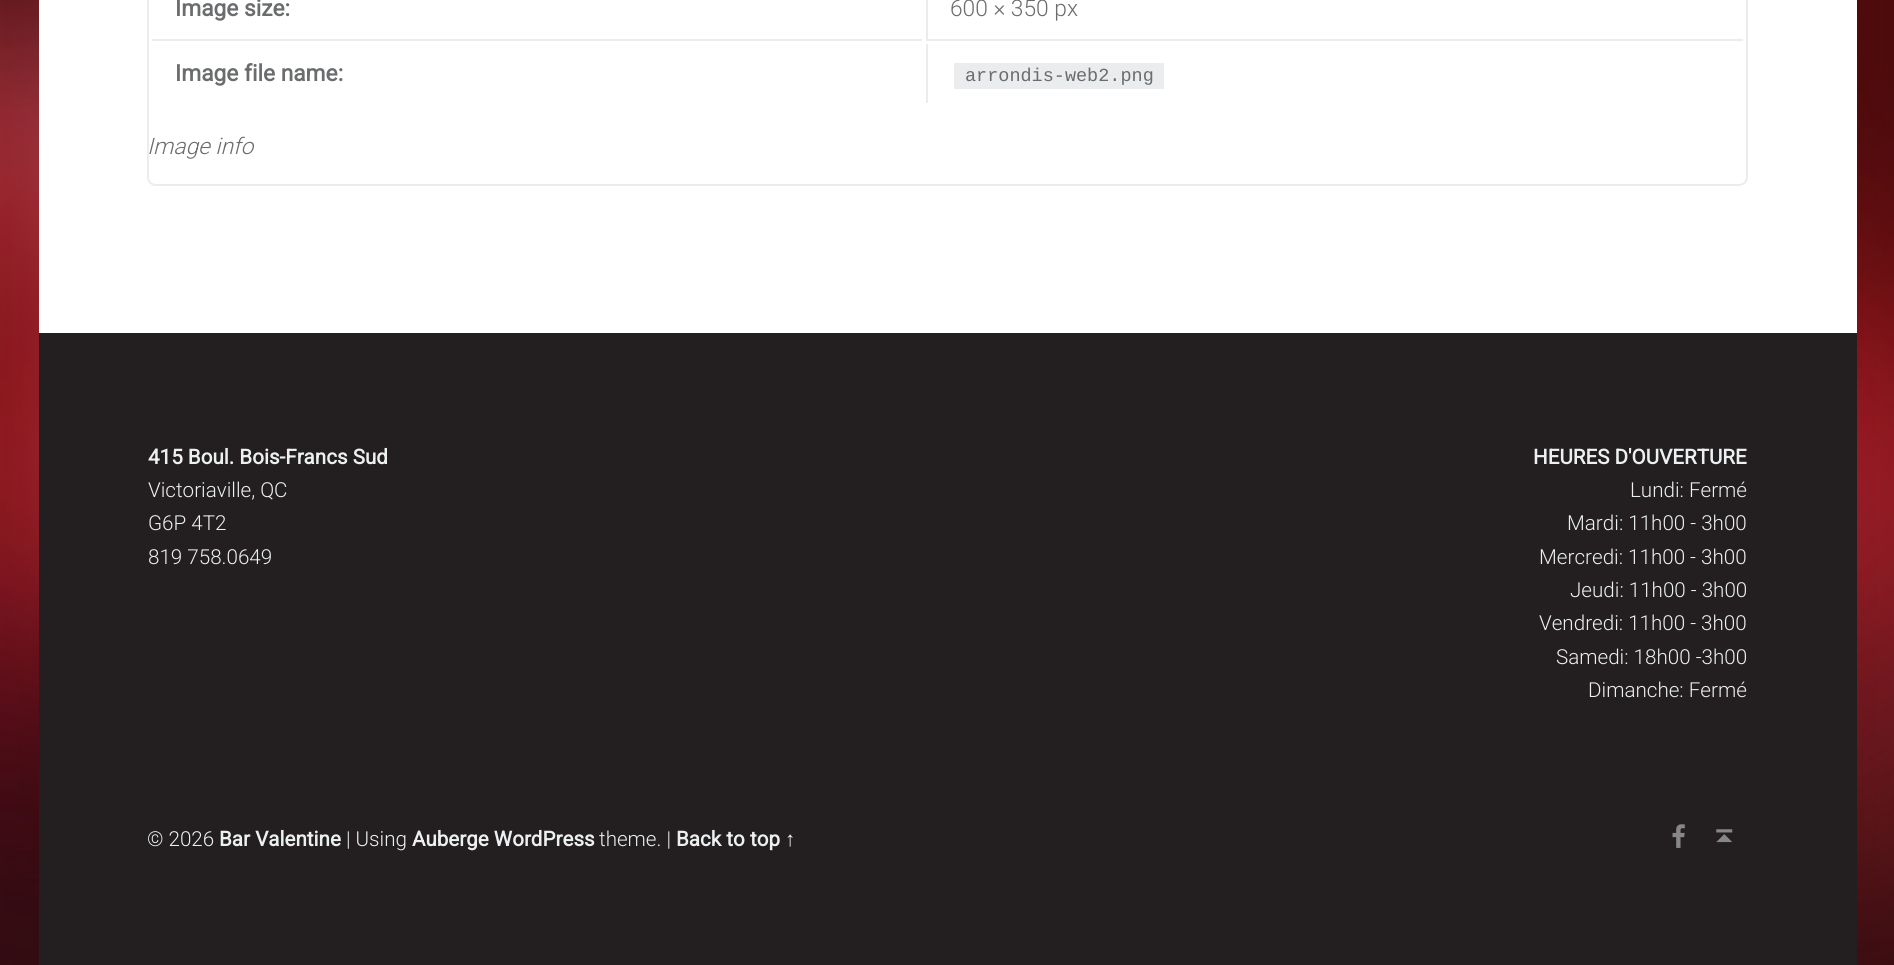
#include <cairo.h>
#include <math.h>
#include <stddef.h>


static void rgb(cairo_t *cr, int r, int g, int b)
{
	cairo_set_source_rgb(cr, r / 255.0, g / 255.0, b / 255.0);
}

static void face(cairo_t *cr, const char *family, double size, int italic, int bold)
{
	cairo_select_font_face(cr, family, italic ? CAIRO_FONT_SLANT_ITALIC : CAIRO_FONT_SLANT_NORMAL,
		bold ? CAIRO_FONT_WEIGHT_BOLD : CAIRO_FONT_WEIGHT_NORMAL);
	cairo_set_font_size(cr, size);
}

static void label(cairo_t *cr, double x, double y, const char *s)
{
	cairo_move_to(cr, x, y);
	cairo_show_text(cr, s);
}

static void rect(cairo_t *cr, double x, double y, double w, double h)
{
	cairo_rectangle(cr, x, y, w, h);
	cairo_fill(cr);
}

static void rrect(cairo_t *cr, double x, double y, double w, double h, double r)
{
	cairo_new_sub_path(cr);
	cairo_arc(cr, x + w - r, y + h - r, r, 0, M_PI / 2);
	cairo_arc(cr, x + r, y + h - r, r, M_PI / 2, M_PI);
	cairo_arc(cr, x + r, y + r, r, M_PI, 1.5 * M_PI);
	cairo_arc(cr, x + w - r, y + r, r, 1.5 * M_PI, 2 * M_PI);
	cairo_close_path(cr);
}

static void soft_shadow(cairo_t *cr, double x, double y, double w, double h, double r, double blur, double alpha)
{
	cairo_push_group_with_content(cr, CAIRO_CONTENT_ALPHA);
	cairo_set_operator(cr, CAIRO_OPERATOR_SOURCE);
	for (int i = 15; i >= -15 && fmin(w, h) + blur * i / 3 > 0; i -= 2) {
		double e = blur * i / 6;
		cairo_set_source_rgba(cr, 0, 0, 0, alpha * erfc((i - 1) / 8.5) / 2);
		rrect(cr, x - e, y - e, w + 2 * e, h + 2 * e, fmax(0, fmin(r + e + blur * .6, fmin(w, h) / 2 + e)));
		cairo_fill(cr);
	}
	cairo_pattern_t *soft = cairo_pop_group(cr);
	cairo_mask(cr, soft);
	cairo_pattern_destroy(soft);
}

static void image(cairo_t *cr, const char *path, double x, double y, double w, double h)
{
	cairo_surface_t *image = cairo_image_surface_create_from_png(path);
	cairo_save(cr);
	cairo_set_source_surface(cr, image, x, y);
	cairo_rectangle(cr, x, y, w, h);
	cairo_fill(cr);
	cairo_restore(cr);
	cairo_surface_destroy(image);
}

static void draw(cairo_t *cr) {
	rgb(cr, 255, 255, 255);
	cairo_paint(cr);
	image(cr, "image0.png", 0, 0, 1894, 965);
	rgb(cr, 0, 0, 0);
	soft_shadow(cr, 39, -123, 1818, 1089, 0, 41, 0.07);
	rgb(cr, 255, 255, 255);
	rect(cr, 39, 0, 1818, 333);
	rrect(cr, 148, -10, 1599, 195, 8);
	rgb(cr, 234, 236, 238);
	cairo_stroke(cr);
	rect(cr, 152, 39, 770, 2);
	face(cr, "Roboto", 22.75, 0, 1);
	rgb(cr, 106, 108, 110);
	label(cr, 175, 16, "Image size:");
	rgb(cr, 234, 236, 238);
	rect(cr, 926, 39, 817, 2);
	rect(cr, 926, 0, 2, 40);
	face(cr, "Roboto Light", 22.75, 0, 0);
	rgb(cr, 106, 108, 110);
	label(cr, 950, 16, "600 × 350 px");
	face(cr, "Roboto", 22.75, 0, 1);
	label(cr, 175, 81, "Image file name:");
	rgb(cr, 234, 236, 238);
	rect(cr, 926, 44, 2, 59);
	rect(cr, 954, 63, 210, 26);
	face(cr, "Liberation Mono", 18.5, 0, 0);
	rgb(cr, 106, 108, 110);
	label(cr, 965, 81, "arrondis-web2.png");
	face(cr, "Roboto Light", 22.75, 1, 0);
	label(cr, 147, 154, "Image info");
	rgb(cr, 35, 31, 32);
	rect(cr, 39, 333, 1818, 632);
	face(cr, "Roboto", 20.6, 0, 1);
	rgb(cr, 236, 240, 241);
	label(cr, 148, 464, "415 Boul. Bois-Francs Sud");
	face(cr, "Roboto Light", 20.6, 0, 0);
	label(cr, 148, 497, "Victoriaville, QC");
	label(cr, 148, 530, "G6P 4T2");
	label(cr, 148, 564, "819 758.0649");
	face(cr, "Roboto", 20.6, 0, 1);
	label(cr, 1533, 464, "HEURES D'OUVERTURE");
	face(cr, "Roboto Light", 20.6, 0, 0);
	label(cr, 1630, 497, "Lundi: Fermé");
	label(cr, 1567, 530, "Mardi: 11h00 - 3h00");
	label(cr, 1539, 564, "Mercredi: 11h00 - 3h00");
	label(cr, 1570, 597, "Jeudi: 11h00 - 3h00");
	label(cr, 1539, 630, "Vendredi: 11h00 - 3h00");
	label(cr, 1556, 664, "Samedi: 18h00 -3h00");
	label(cr, 1588, 697, "Dimanche: Fermé");
	label(cr, 147, 846, "© 2026");
	face(cr, "Roboto", 20.6, 0, 1);
	label(cr, 219, 846, "Bar Valentine");
	face(cr, "Roboto Light", 20.6, 0, 0);
	label(cr, 346, 846, "| Using");
	face(cr, "Roboto", 20.6, 0, 1);
	label(cr, 412, 846, "Auberge WordPress");
	face(cr, "Roboto Light", 20.6, 0, 0);
	label(cr, 599, 846, "theme. |");
	face(cr, "Roboto", 20.6, 0, 1);
	label(cr, 676, 846, "Back to top");
	face(cr, "Liberation Serif", 20.6, 0, 1);
	label(cr, 785, 846, "↑");
	image(cr, "image1.png", 1672, 824, 13, 24);
	image(cr, "image2.png", 1716, 829, 17, 14);
}

int main(void) {
	cairo_surface_t *surface = cairo_image_surface_create(CAIRO_FORMAT_RGB24, 1894, 965);
	cairo_t *cr = cairo_create(surface);
	cairo_font_options_t *options = cairo_font_options_create();
	cairo_font_options_set_hint_metrics(options, CAIRO_HINT_METRICS_OFF);
	cairo_font_options_set_hint_style(options, CAIRO_HINT_STYLE_NONE);
	cairo_set_font_options(cr, options);
	cairo_set_miter_limit(cr, 4);
	draw(cr);
	cairo_surface_write_to_png(surface, "render.png");
	cairo_font_options_destroy(options);
	cairo_destroy(cr);
	cairo_surface_destroy(surface);
	return 0;
}
